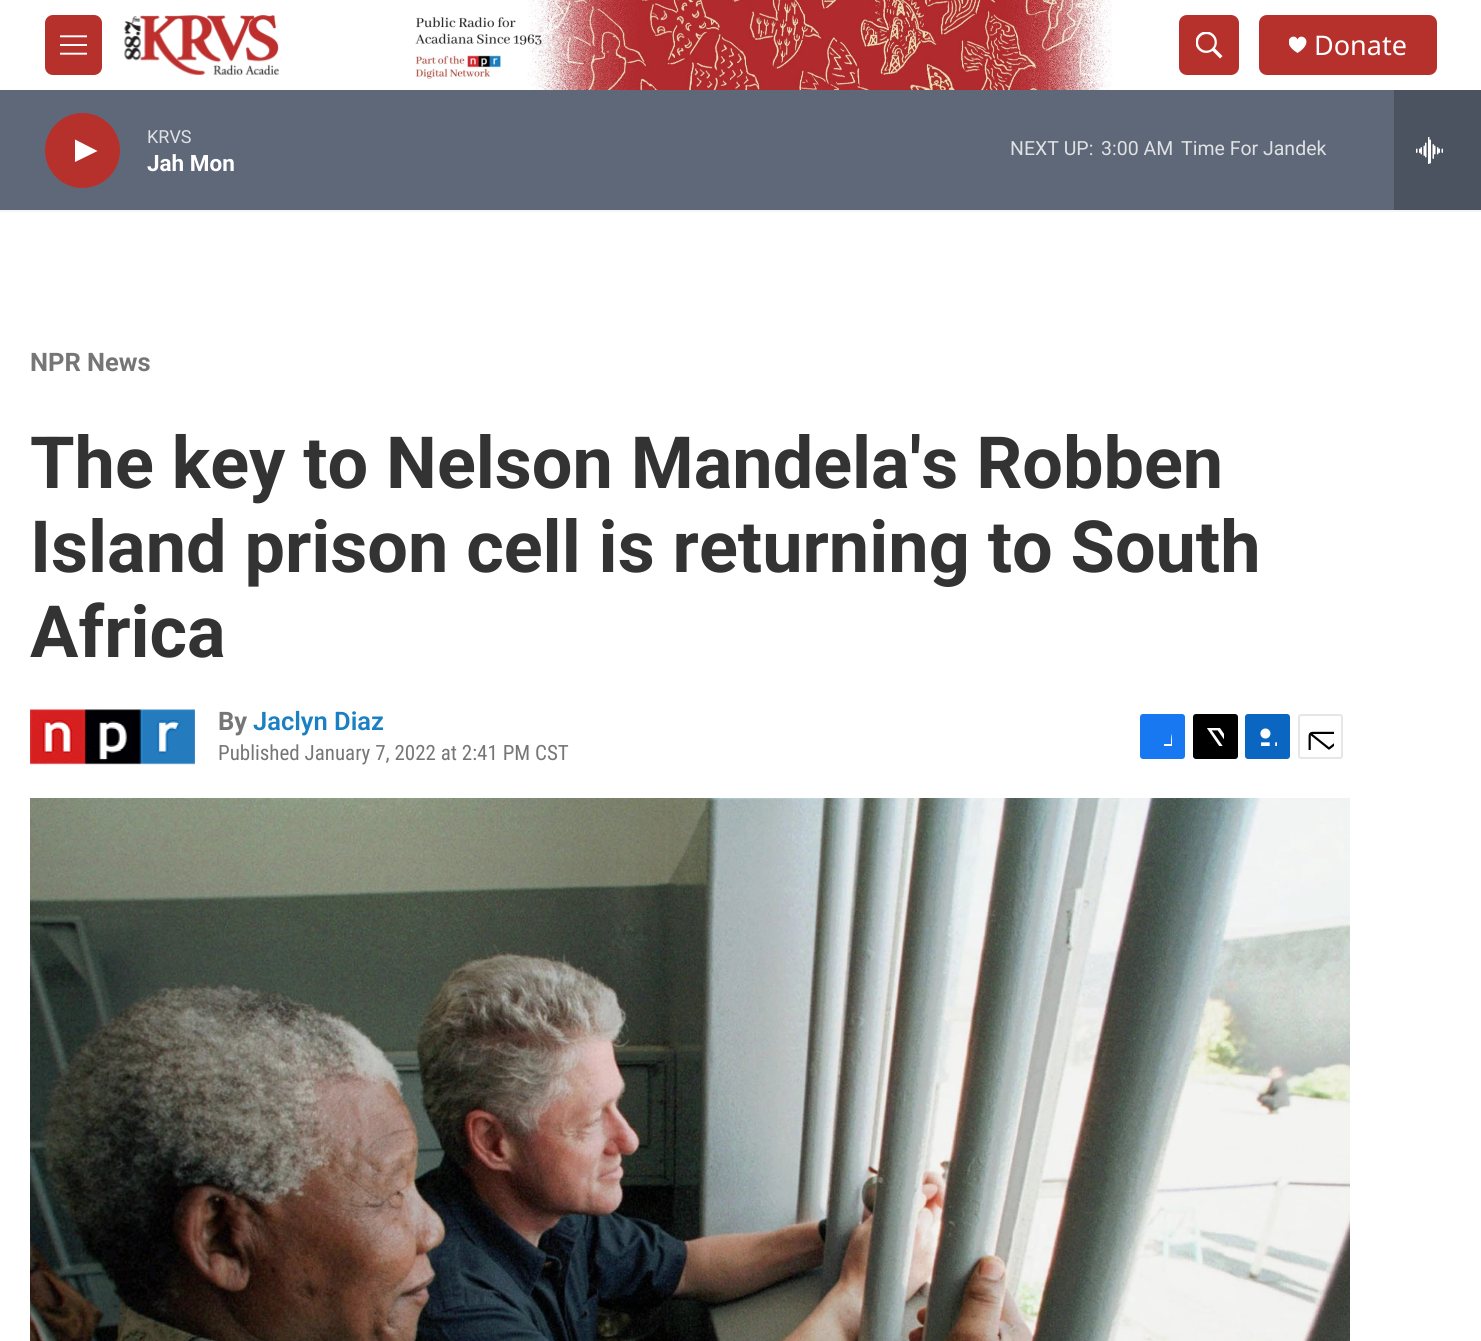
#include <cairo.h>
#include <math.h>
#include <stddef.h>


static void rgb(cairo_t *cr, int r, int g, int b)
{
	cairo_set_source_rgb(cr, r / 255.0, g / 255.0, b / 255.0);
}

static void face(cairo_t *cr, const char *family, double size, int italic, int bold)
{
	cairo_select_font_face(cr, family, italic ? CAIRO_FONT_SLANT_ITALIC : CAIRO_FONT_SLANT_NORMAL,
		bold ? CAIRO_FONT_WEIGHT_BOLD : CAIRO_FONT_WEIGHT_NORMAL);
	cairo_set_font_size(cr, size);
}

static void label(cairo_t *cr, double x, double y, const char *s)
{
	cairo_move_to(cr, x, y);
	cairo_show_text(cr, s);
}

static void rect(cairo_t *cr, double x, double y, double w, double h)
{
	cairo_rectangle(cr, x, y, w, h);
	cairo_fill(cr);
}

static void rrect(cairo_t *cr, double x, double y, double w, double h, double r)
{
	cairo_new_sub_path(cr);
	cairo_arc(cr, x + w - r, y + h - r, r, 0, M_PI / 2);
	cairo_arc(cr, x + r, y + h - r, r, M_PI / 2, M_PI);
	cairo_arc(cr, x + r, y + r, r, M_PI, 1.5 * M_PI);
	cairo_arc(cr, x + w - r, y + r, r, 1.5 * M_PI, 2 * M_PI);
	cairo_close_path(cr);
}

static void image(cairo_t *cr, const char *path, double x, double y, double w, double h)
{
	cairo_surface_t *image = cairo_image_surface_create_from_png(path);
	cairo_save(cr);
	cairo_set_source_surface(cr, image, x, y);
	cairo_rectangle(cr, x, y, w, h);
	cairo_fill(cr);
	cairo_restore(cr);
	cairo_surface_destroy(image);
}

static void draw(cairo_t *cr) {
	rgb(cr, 255, 255, 255);
	cairo_paint(cr);
	rgb(cr, 245, 245, 245);
	rect(cr, 0, 210, 1481, 2);
	image(cr, "image0.png", 415, 0, 698, 90);
	rgb(cr, 183, 49, 44);
	rrect(cr, 45, 15, 57, 60, 8);
	cairo_fill(cr);
	image(cr, "image1.png", 60, 35, 27, 20);
	image(cr, "image2.png", 124, 15, 155, 60);
	rrect(cr, 1179, 15, 60, 60, 8);
	cairo_fill(cr);
	image(cr, "image3.png", 1196, 32, 27, 27);
	rrect(cr, 1259, 15, 178, 60, 8);
	cairo_fill(cr);
	cairo_save(cr);
	cairo_rectangle(cr, 1289, 36, 18, 18);
	cairo_clip(cr);
	rgb(cr, 255, 255, 255);
	cairo_new_path(cr);
	cairo_move_to(cr, 1297.5, 39.5);
	cairo_curve_to(cr, 1294.5, 31.5, 1279, 41.5, 1297.5, 53);
	cairo_curve_to(cr, 1316, 41.5, 1300.5, 31.5, 1297.5, 39.5);
	cairo_close_path(cr);
	cairo_fill(cr);
	cairo_restore(cr);
	face(cr, "Noto Sans", 27, 0, 0);
	rgb(cr, 255, 255, 255);
	label(cr, 1314, 55, "Donate");
	rgb(cr, 95, 104, 120);
	rect(cr, 0, 90, 1394, 120);
	rgb(cr, 183, 49, 44);
	cairo_new_path(cr);
	cairo_arc(cr, 82.5, 150.5, 37.5, 0, 2 * M_PI);
	cairo_fill(cr);
	rgb(cr, 255, 255, 255);
	cairo_new_path(cr);
	cairo_move_to(cr, 75, 139.5);
	cairo_line_to(cr, 97.5, 151);
	cairo_line_to(cr, 75, 162);
	cairo_close_path(cr);
	cairo_fill(cr);
	face(cr, "Roboto", 18, 0, 0);
	rgb(cr, 223, 225, 228);
	label(cr, 147, 143, "KRVS");
	face(cr, "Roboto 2", 22.5, 0, 1);
	rgb(cr, 255, 255, 255);
	label(cr, 147, 171, "Jah Mon");
	face(cr, "Roboto", 19.5, 0, 0);
	rgb(cr, 223, 225, 228);
	label(cr, 1010, 155, "NEXT UP:");
	label(cr, 1101, 155, "3:00 AM");
	label(cr, 1181, 155, "Time For Jandek");
	rgb(cr, 76, 83, 96);
	rect(cr, 1394, 90, 87, 120);
	image(cr, "image4.png", 1416, 137, 27, 27);
	face(cr, "Roboto", 25.5, 0, 1);
	rgb(cr, 118, 118, 118);
	label(cr, 30, 371, "NPR News");
	face(cr, "Roboto", 72, 0, 1);
	rgb(cr, 51, 51, 51);
	label(cr, 30, 488, "The key to Nelson Mandela's Robben");
	label(cr, 30, 572, "Island prison cell is returning to South");
	label(cr, 30, 657, "Africa");
	image(cr, "image5.png", 30, 709, 165, 56);
	face(cr, "Roboto", 25.5, 0, 1);
	rgb(cr, 118, 118, 118);
	label(cr, 218, 730, "By");
	face(cr, "Roboto SemiBold", 25.5, 0, 0);
	rgb(cr, 26, 127, 195);
	label(cr, 253, 730, "Jaclyn Diaz");
	face(cr, "Roboto Condensed", 21, 0, 0);
	rgb(cr, 118, 118, 118);
	label(cr, 218, 760, "Published January 7, 2022 at 2:41 PM CST");
	rgb(cr, 23, 120, 242);
	rrect(cr, 1140, 714, 45, 45, 3);
	cairo_fill(cr);
	cairo_save(cr);
	cairo_rectangle(cr, 1154, 728, 18, 18);
	cairo_clip(cr);
	rgb(cr, 255, 255, 255);
	cairo_new_path(cr);
	cairo_move_to(cr, 1178, 759);
	cairo_line_to(cr, 1171, 759);
	cairo_line_to(cr, 1171, 752);
	cairo_line_to(cr, 1164, 752);
	cairo_line_to(cr, 1164, 744);
	cairo_line_to(cr, 1171, 744);
	cairo_curve_to(cr, 1171, 732.5, 1172, 726.5, 1185, 728);
	cairo_line_to(cr, 1185, 735);
	cairo_curve_to(cr, 1177, 735, 1178, 737.5, 1178, 744);
	cairo_line_to(cr, 1185, 744);
	cairo_line_to(cr, 1184, 752);
	cairo_line_to(cr, 1178, 752);
	cairo_close_path(cr);
	cairo_fill(cr);
	cairo_restore(cr);
	rgb(cr, 0, 0, 0);
	rrect(cr, 1193, 714, 45, 45, 3);
	cairo_fill(cr);
	image(cr, "image6.png", 1207, 728, 17, 18);
	rgb(cr, 10, 102, 193);
	rrect(cr, 1245, 714, 45, 45, 3);
	cairo_fill(cr);
	image(cr, "image7.png", 1260, 728, 17, 18);
	rrect(cr, 1299, 715, 43, 43, 2);
	rgb(cr, 230, 230, 230);
	cairo_stroke(cr);
	image(cr, "image8.png", 1308, 731, 26, 19);
	image(cr, "image9.png", 30, 798, 1320, 543);
}

int main(void) {
	cairo_surface_t *surface = cairo_image_surface_create(CAIRO_FORMAT_RGB24, 1481, 1341);
	cairo_t *cr = cairo_create(surface);
	cairo_font_options_t *options = cairo_font_options_create();
	cairo_font_options_set_hint_metrics(options, CAIRO_HINT_METRICS_OFF);
	cairo_font_options_set_hint_style(options, CAIRO_HINT_STYLE_NONE);
	cairo_set_font_options(cr, options);
	cairo_set_miter_limit(cr, 4);
	draw(cr);
	cairo_surface_write_to_png(surface, "render.png");
	cairo_font_options_destroy(options);
	cairo_destroy(cr);
	cairo_surface_destroy(surface);
	return 0;
}
